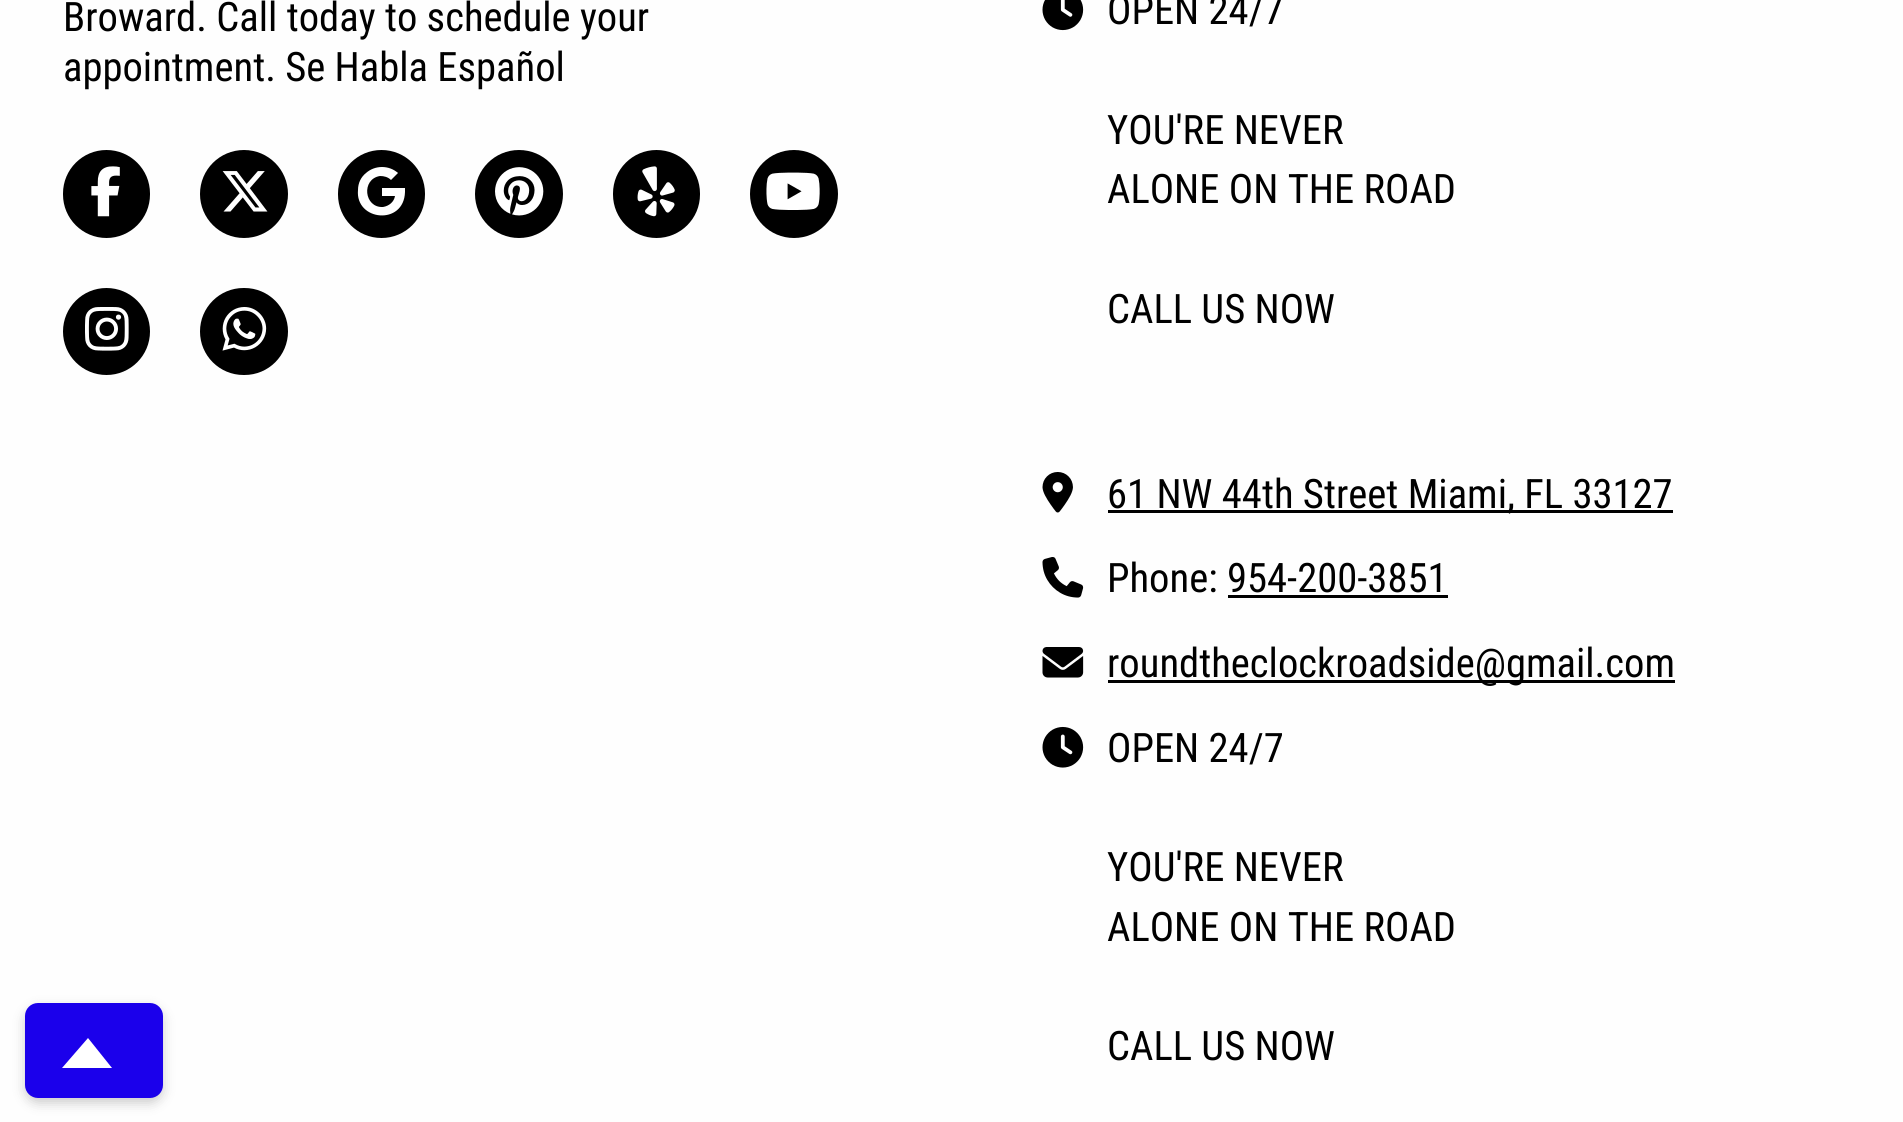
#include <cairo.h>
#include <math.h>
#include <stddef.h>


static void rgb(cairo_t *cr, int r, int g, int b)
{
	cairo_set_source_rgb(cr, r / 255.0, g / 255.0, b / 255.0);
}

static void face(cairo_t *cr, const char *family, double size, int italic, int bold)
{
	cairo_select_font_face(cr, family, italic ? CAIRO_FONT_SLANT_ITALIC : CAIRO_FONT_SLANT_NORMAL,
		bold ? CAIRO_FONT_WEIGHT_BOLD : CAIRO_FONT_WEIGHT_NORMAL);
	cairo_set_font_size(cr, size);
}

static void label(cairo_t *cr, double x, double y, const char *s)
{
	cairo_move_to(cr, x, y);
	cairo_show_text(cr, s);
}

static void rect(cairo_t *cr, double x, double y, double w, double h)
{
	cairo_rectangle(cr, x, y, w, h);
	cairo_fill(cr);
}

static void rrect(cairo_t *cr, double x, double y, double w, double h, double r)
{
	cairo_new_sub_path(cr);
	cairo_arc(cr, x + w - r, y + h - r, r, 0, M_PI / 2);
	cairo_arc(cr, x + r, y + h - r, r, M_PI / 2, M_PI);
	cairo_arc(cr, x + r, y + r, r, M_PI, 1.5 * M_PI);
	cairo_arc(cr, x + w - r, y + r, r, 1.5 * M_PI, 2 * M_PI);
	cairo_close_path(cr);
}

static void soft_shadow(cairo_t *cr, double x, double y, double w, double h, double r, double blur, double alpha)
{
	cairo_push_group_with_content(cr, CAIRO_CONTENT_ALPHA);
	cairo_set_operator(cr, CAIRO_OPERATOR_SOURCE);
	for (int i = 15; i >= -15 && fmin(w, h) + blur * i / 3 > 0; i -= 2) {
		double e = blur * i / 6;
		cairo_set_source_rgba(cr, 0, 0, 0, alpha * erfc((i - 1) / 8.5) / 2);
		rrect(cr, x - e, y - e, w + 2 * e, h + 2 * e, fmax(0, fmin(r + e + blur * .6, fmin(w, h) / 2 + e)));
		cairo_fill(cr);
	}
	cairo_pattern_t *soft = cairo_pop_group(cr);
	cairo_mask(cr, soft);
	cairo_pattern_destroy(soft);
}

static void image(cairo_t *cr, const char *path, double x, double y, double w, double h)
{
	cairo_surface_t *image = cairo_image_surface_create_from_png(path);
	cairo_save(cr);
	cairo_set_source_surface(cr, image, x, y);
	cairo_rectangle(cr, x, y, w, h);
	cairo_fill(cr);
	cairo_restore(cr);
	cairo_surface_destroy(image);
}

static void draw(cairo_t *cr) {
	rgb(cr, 254, 254, 254);
	cairo_paint(cr);
	face(cr, "Roboto Condensed", 40.6, 0, 0);
	rgb(cr, 0, 0, 0);
	label(cr, 63, 31, "Broward. Call today to schedule your");
	label(cr, 63, 81, "appointment. Se Habla Español");
	rrect(cr, 63, 150, 87, 88, 43.5);
	cairo_fill(cr);
	image(cr, "image0.png", 91, 166, 29, 51);
	cairo_arc(cr, 244, 194, 44, 0, 2 * M_PI);
	cairo_fill(cr);
	image(cr, "image1.png", 222, 171, 46, 41);
	rrect(cr, 338, 150, 87, 88, 43.5);
	cairo_fill(cr);
	rgb(cr, 255, 255, 255);
	cairo_new_path(cr);
	cairo_move_to(cr, 405, 192);
	cairo_curve_to(cr, 404, 226, 355, 221, 358, 190);
	cairo_curve_to(cr, 358, 183, 361, 177, 366, 173);
	cairo_curve_to(cr, 375, 165, 389, 165, 398, 173);
	cairo_line_to(cr, 391, 180);
	cairo_curve_to(cr, 388, 177, 384, 176, 380, 176);
	cairo_curve_to(cr, 361, 179, 364, 208, 383, 207);
	cairo_curve_to(cr, 389, 206, 394, 202, 395, 196);
	cairo_line_to(cr, 382, 196);
	cairo_line_to(cr, 382, 188);
	cairo_line_to(cr, 405, 188);
	cairo_close_path(cr);
	cairo_fill(cr);
	rgb(cr, 0, 0, 0);
	cairo_arc(cr, 519, 194, 44, 0, 2 * M_PI);
	cairo_fill(cr);
	image(cr, "image2.png", 495, 167, 49, 49);
	rrect(cr, 613, 150, 87, 88, 43.5);
	cairo_fill(cr);
	image(cr, "image3.png", 637, 166, 38, 51);
	cairo_arc(cr, 794, 194, 44, 0, 2 * M_PI);
	cairo_fill(cr);
	image(cr, "image4.png", 766, 172, 54, 38);
	cairo_arc(cr, 106.5, 331.5, 43.5, 0, 2 * M_PI);
	cairo_fill(cr);
	image(cr, "image5.png", 85, 307, 44, 44);
	rrect(cr, 200, 288, 88, 87, 43.5);
	cairo_fill(cr);
	image(cr, "image6.png", 222, 307, 45, 44);
	image(cr, "image7.png", 1042, 0, 42, 31);
	label(cr, 1107, 24, "OPEN 24/7");
	label(cr, 1107, 144, "YOU'RE NEVER");
	label(cr, 1107, 203, "ALONE ON THE ROAD");
	label(cr, 1107, 323, "CALL US NOW");
	image(cr, "image8.png", 1042, 472, 31, 41);
	rect(cr, 1108, 510, 565, 3);
	label(cr, 1107, 508, "61 NW 44th Street Miami, FL 33127");
	image(cr, "image9.png", 1042, 557, 42, 41);
	label(cr, 1107, 592, "Phone: 954-200-3851");
	rect(cr, 1228, 595, 220, 3);
	image(cr, "image10.png", 1042, 647, 42, 31);
	rect(cr, 1108, 680, 567, 3);
	label(cr, 1107, 677, "roundtheclockroadside@gmail.com");
	image(cr, "image11.png", 1042, 726, 42, 42);
	label(cr, 1107, 762, "OPEN 24/7");
	label(cr, 1107, 881, "YOU'RE NEVER");
	label(cr, 1107, 941, "ALONE ON THE ROAD");
	label(cr, 1107, 1060, "CALL US NOW");
	rgb(cr, 0, 0, 0);
	soft_shadow(cr, 25, 1008, 138, 95, 13, 6, 0.2);
	rgb(cr, 27, 0, 235);
	rrect(cr, 25, 1003, 138, 95, 13);
	cairo_fill(cr);
	rgb(cr, 255, 255, 255);
	cairo_new_path(cr);
	cairo_move_to(cr, 112, 1068);
	cairo_line_to(cr, 62, 1068);
	cairo_line_to(cr, 88, 1038);
	cairo_close_path(cr);
	cairo_fill(cr);
}

int main(void) {
	cairo_surface_t *surface = cairo_image_surface_create(CAIRO_FORMAT_RGB24, 1903, 1122);
	cairo_t *cr = cairo_create(surface);
	cairo_font_options_t *options = cairo_font_options_create();
	cairo_font_options_set_hint_metrics(options, CAIRO_HINT_METRICS_OFF);
	cairo_font_options_set_hint_style(options, CAIRO_HINT_STYLE_NONE);
	cairo_set_font_options(cr, options);
	cairo_set_miter_limit(cr, 4);
	draw(cr);
	cairo_surface_write_to_png(surface, "render.png");
	cairo_font_options_destroy(options);
	cairo_destroy(cr);
	cairo_surface_destroy(surface);
	return 0;
}
